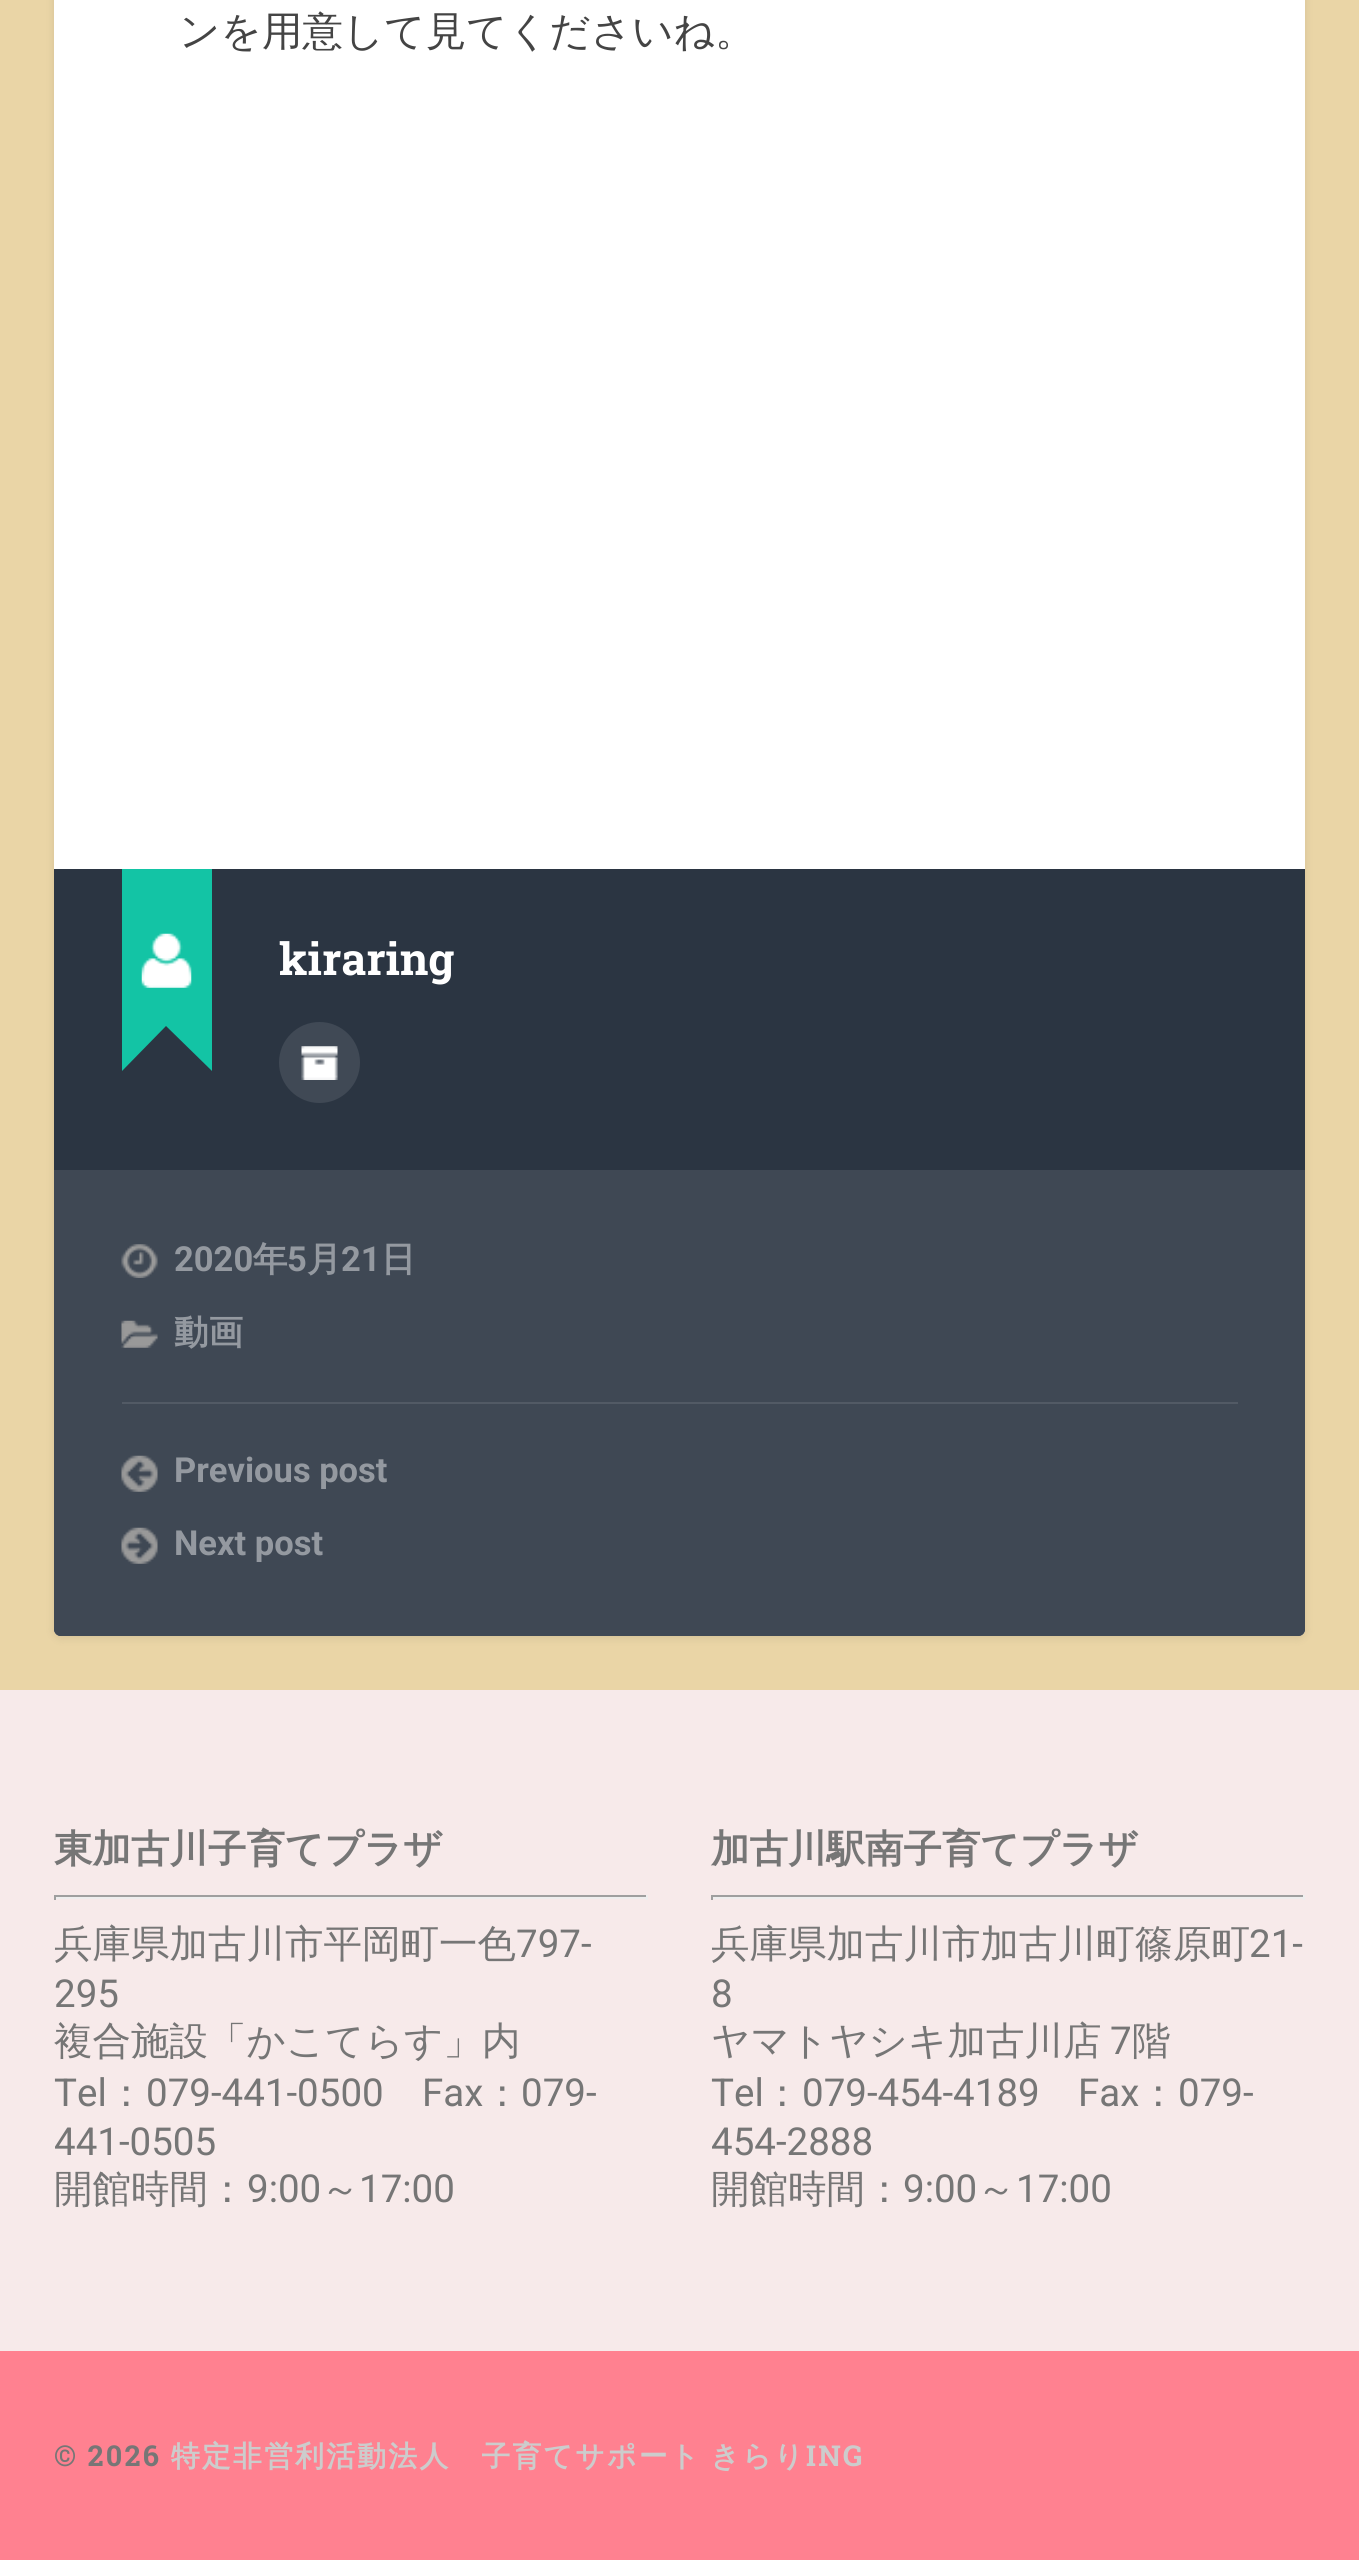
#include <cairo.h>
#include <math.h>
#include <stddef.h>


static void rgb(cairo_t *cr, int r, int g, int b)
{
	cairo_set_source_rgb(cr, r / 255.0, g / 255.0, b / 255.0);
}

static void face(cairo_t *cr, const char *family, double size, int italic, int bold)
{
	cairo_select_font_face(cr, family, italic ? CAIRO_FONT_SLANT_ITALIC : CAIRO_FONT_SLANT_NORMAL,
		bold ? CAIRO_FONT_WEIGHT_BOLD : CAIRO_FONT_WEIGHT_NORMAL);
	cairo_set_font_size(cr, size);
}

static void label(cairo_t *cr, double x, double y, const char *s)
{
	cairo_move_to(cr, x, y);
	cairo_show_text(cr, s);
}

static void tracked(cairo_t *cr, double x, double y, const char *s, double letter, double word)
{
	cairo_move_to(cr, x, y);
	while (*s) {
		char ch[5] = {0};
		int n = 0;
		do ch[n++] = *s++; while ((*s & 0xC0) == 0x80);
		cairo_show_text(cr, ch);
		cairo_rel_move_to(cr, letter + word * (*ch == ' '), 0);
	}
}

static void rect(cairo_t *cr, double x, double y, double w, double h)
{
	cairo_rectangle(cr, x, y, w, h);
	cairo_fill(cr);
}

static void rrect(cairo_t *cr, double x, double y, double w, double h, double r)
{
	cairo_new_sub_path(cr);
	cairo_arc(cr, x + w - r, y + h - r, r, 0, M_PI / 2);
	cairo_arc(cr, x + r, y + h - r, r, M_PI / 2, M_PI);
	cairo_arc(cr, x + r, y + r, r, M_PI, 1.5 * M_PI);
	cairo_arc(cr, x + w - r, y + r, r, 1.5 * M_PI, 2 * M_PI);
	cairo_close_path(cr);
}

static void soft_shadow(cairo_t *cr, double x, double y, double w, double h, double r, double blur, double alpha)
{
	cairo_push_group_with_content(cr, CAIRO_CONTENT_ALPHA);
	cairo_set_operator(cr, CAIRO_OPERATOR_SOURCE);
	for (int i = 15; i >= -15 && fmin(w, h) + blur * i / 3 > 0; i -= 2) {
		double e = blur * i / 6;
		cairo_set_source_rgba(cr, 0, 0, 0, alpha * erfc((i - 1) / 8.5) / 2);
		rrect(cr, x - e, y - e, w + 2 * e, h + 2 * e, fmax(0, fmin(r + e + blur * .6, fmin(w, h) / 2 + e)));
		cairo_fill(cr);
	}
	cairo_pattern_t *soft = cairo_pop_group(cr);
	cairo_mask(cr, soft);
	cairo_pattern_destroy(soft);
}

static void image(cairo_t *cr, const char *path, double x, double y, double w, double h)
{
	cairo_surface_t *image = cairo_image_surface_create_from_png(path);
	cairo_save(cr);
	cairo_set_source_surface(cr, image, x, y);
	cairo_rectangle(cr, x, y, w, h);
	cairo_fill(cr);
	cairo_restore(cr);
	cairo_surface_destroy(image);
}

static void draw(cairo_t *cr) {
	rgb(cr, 234, 213, 166);
	cairo_paint(cr);
	rgb(cr, 0, 0, 0);
	soft_shadow(cr, 54, -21, 1251, 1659, 7, 4.5, 0.1);
	rgb(cr, 255, 255, 255);
	rrect(cr, 54, -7, 1251, 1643, 7);
	cairo_fill(cr);
	face(cr, "WenQuanYi Zen Hei Medium", 40.5, 0, 0);
	rgb(cr, 68, 68, 68);
	label(cr, 179, 45, "ンを用意して見てくださいね。");
	rgb(cr, 43, 53, 66);
	cairo_new_path(cr);
	cairo_move_to(cr, 54, 869);
	cairo_line_to(cr, 1305, 869);
	cairo_line_to(cr, 1305, 1629);
	cairo_curve_to(cr, 1305, 1633, 1302, 1636, 1298, 1636);
	cairo_line_to(cr, 61, 1636);
	cairo_curve_to(cr, 57, 1636, 54, 1633, 54, 1629);
	cairo_close_path(cr);
	cairo_fill(cr);
	rgb(cr, 19, 196, 165);
	cairo_new_path(cr);
	cairo_move_to(cr, 212, 981);
	cairo_line_to(cr, 212, 1071);
	cairo_line_to(cr, 166, 1026);
	cairo_close_path(cr);
	cairo_fill(cr);
	cairo_new_path(cr);
	cairo_move_to(cr, 122, 1071);
	cairo_line_to(cr, 122, 981);
	cairo_line_to(cr, 166, 1026);
	cairo_close_path(cr);
	cairo_fill(cr);
	rect(cr, 122, 869, 90, 157);
	image(cr, "image0.png", 141, 933, 51, 55);
	face(cr, "Roboto Slab", 44.5, 0, 1);
	rgb(cr, 255, 255, 255);
	label(cr, 279, 975, "kiraring");
	rgb(cr, 64, 73, 85);
	cairo_new_path(cr);
	cairo_arc(cr, 319.5, 1062.5, 40.5, 0, 2 * M_PI);
	cairo_fill(cr);
	image(cr, "image1.png", 301, 1046, 37, 34);
	rgb(cr, 63, 72, 84);
	cairo_new_path(cr);
	cairo_move_to(cr, 54, 1170);
	cairo_line_to(cr, 1305, 1170);
	cairo_line_to(cr, 1305, 1629);
	cairo_curve_to(cr, 1305, 1633, 1302, 1636, 1298, 1636);
	cairo_line_to(cr, 61, 1636);
	cairo_curve_to(cr, 57, 1636, 54, 1633, 54, 1629);
	cairo_close_path(cr);
	cairo_fill(cr);
	image(cr, "image2.png", 121, 1244, 37, 34);
	face(cr, "Roboto", 34.5, 0, 1);
	rgb(cr, 148, 153, 160);
	label(cr, 174, 1271, "2020");
	face(cr, "WenQuanYi Zen Hei", 34.5, 0, 1);
	label(cr, 253, 1271, "年");
	face(cr, "Roboto", 34.5, 0, 1);
	label(cr, 287, 1271, "5");
	face(cr, "WenQuanYi Zen Hei", 34.5, 0, 1);
	label(cr, 307, 1271, "月");
	face(cr, "Roboto", 34.5, 0, 1);
	label(cr, 341, 1271, "21");
	face(cr, "WenQuanYi Zen Hei", 34.5, 0, 1);
	label(cr, 381, 1271, "日");
	image(cr, "image3.png", 121, 1320, 37, 28);
	label(cr, 174, 1344, "動画");
	rgb(cr, 82, 90, 101);
	rect(cr, 122, 1402, 1116, 2);
	image(cr, "image4.png", 121, 1455, 37, 37);
	face(cr, "Roboto", 34.5, 0, 1);
	rgb(cr, 148, 153, 160);
	label(cr, 174, 1482, "Previous post");
	image(cr, "image5.png", 121, 1527, 37, 37);
	label(cr, 174, 1555, "Next post");
	rgb(cr, 247, 234, 234);
	rect(cr, 0, 1690, 1359, 661);
	face(cr, "WenQuanYi Zen Hei", 38.5, 0, 1);
	rgb(cr, 118, 118, 118);
	label(cr, 54, 1862, "東加古川子育てプラザ");
	rgb(cr, 159, 159, 159);
	rect(cr, 54, 1895, 594, 2);
	rgb(cr, 238, 238, 238);
	rect(cr, 646, 1895, 2, 5);
	rect(cr, 54, 1897, 594, 2);
	rgb(cr, 159, 159, 159);
	rect(cr, 54, 1895, 2, 5);
	face(cr, "WenQuanYi Zen Hei Medium", 38.5, 0, 0);
	rgb(cr, 118, 118, 118);
	label(cr, 54, 1957, "兵庫県加古川市平岡町一色");
	face(cr, "Roboto", 38.5, 0, 0);
	label(cr, 516, 1957, "797-");
	label(cr, 54, 2007, "295");
	face(cr, "WenQuanYi Zen Hei Medium", 38.5, 0, 0);
	label(cr, 54, 2054, "複合施設「かこてらす」内");
	face(cr, "Roboto", 38.5, 0, 0);
	label(cr, 54, 2106, "Tel");
	face(cr, "WenQuanYi Zen Hei Medium", 38.5, 0, 0);
	label(cr, 107, 2106, "：");
	face(cr, "Roboto", 38.5, 0, 0);
	label(cr, 146, 2106, "079-441-0500");
	label(cr, 422, 2106, "Fax");
	face(cr, "WenQuanYi Zen Hei Medium", 38.5, 0, 0);
	label(cr, 483, 2106, "：");
	face(cr, "Roboto", 38.5, 0, 0);
	label(cr, 521, 2106, "079-");
	label(cr, 54, 2155, "441-0505");
	face(cr, "WenQuanYi Zen Hei Medium", 38.5, 0, 0);
	label(cr, 54, 2202, "開館時間：");
	face(cr, "Roboto", 38.5, 0, 0);
	label(cr, 247, 2202, "9:00");
	face(cr, "WenQuanYi Zen Hei Medium", 38.5, 0, 0);
	label(cr, 321, 2202, "～");
	face(cr, "Roboto", 38.5, 0, 0);
	label(cr, 359, 2202, "17:00");
	face(cr, "WenQuanYi Zen Hei", 38.5, 0, 1);
	label(cr, 711, 1862, "加古川駅南子育てプラザ");
	rgb(cr, 159, 159, 159);
	rect(cr, 711, 1895, 594, 2);
	rgb(cr, 238, 238, 238);
	rect(cr, 1303, 1895, 2, 5);
	rect(cr, 711, 1897, 594, 2);
	rgb(cr, 159, 159, 159);
	rect(cr, 711, 1895, 2, 5);
	face(cr, "WenQuanYi Zen Hei Medium", 38.5, 0, 0);
	rgb(cr, 118, 118, 118);
	label(cr, 711, 1957, "兵庫県加古川市加古川町篠原町");
	face(cr, "Roboto", 38.5, 0, 0);
	label(cr, 1249, 1957, "21-");
	label(cr, 711, 2007, "8");
	face(cr, "WenQuanYi Zen Hei Medium", 38.5, 0, 0);
	label(cr, 711, 2054, "ヤマトヤシキ加古川店");
	face(cr, "Roboto", 38.5, 0, 0);
	label(cr, 1110, 2054, "7");
	face(cr, "WenQuanYi Zen Hei Medium", 38.5, 0, 0);
	label(cr, 1132, 2054, "階");
	face(cr, "Roboto", 38.5, 0, 0);
	label(cr, 711, 2106, "Tel");
	face(cr, "WenQuanYi Zen Hei Medium", 38.5, 0, 0);
	label(cr, 763, 2106, "：");
	face(cr, "Roboto", 38.5, 0, 0);
	label(cr, 802, 2106, "079-454-4189");
	label(cr, 1078, 2106, "Fax");
	face(cr, "WenQuanYi Zen Hei Medium", 38.5, 0, 0);
	label(cr, 1139, 2106, "：");
	face(cr, "Roboto", 38.5, 0, 0);
	label(cr, 1178, 2106, "079-");
	label(cr, 711, 2155, "454-2888");
	face(cr, "WenQuanYi Zen Hei Medium", 38.5, 0, 0);
	label(cr, 711, 2202, "開館時間：");
	face(cr, "Roboto", 38.5, 0, 0);
	label(cr, 903, 2202, "9:00");
	face(cr, "WenQuanYi Zen Hei Medium", 38.5, 0, 0);
	label(cr, 977, 2202, "～");
	face(cr, "Roboto", 38.5, 0, 0);
	label(cr, 1016, 2202, "17:00");
	rgb(cr, 255, 129, 144);
	rect(cr, 0, 2351, 1359, 209);
	face(cr, "Roboto Slab", 28.8, 0, 1);
	rgb(cr, 118, 118, 118);
	tracked(cr, 54, 2466, "© 2026", 2.25, 0);
	face(cr, "WenQuanYi Zen Hei", 28.8, 0, 1);
	rgb(cr, 204, 204, 204);
	tracked(cr, 171, 2466, "特定非営利活動法人　子育てサポート きらり", 2.25, -2);
	face(cr, "Roboto Slab", 28.8, 0, 1);
	tracked(cr, 806, 2466, "ING", 2.25, 0);
}

int main(void) {
	cairo_surface_t *surface = cairo_image_surface_create(CAIRO_FORMAT_RGB24, 1359, 2560);
	cairo_t *cr = cairo_create(surface);
	cairo_font_options_t *options = cairo_font_options_create();
	cairo_font_options_set_hint_metrics(options, CAIRO_HINT_METRICS_OFF);
	cairo_font_options_set_hint_style(options, CAIRO_HINT_STYLE_NONE);
	cairo_set_font_options(cr, options);
	cairo_set_miter_limit(cr, 4);
	draw(cr);
	cairo_surface_write_to_png(surface, "render.png");
	cairo_font_options_destroy(options);
	cairo_destroy(cr);
	cairo_surface_destroy(surface);
	return 0;
}
